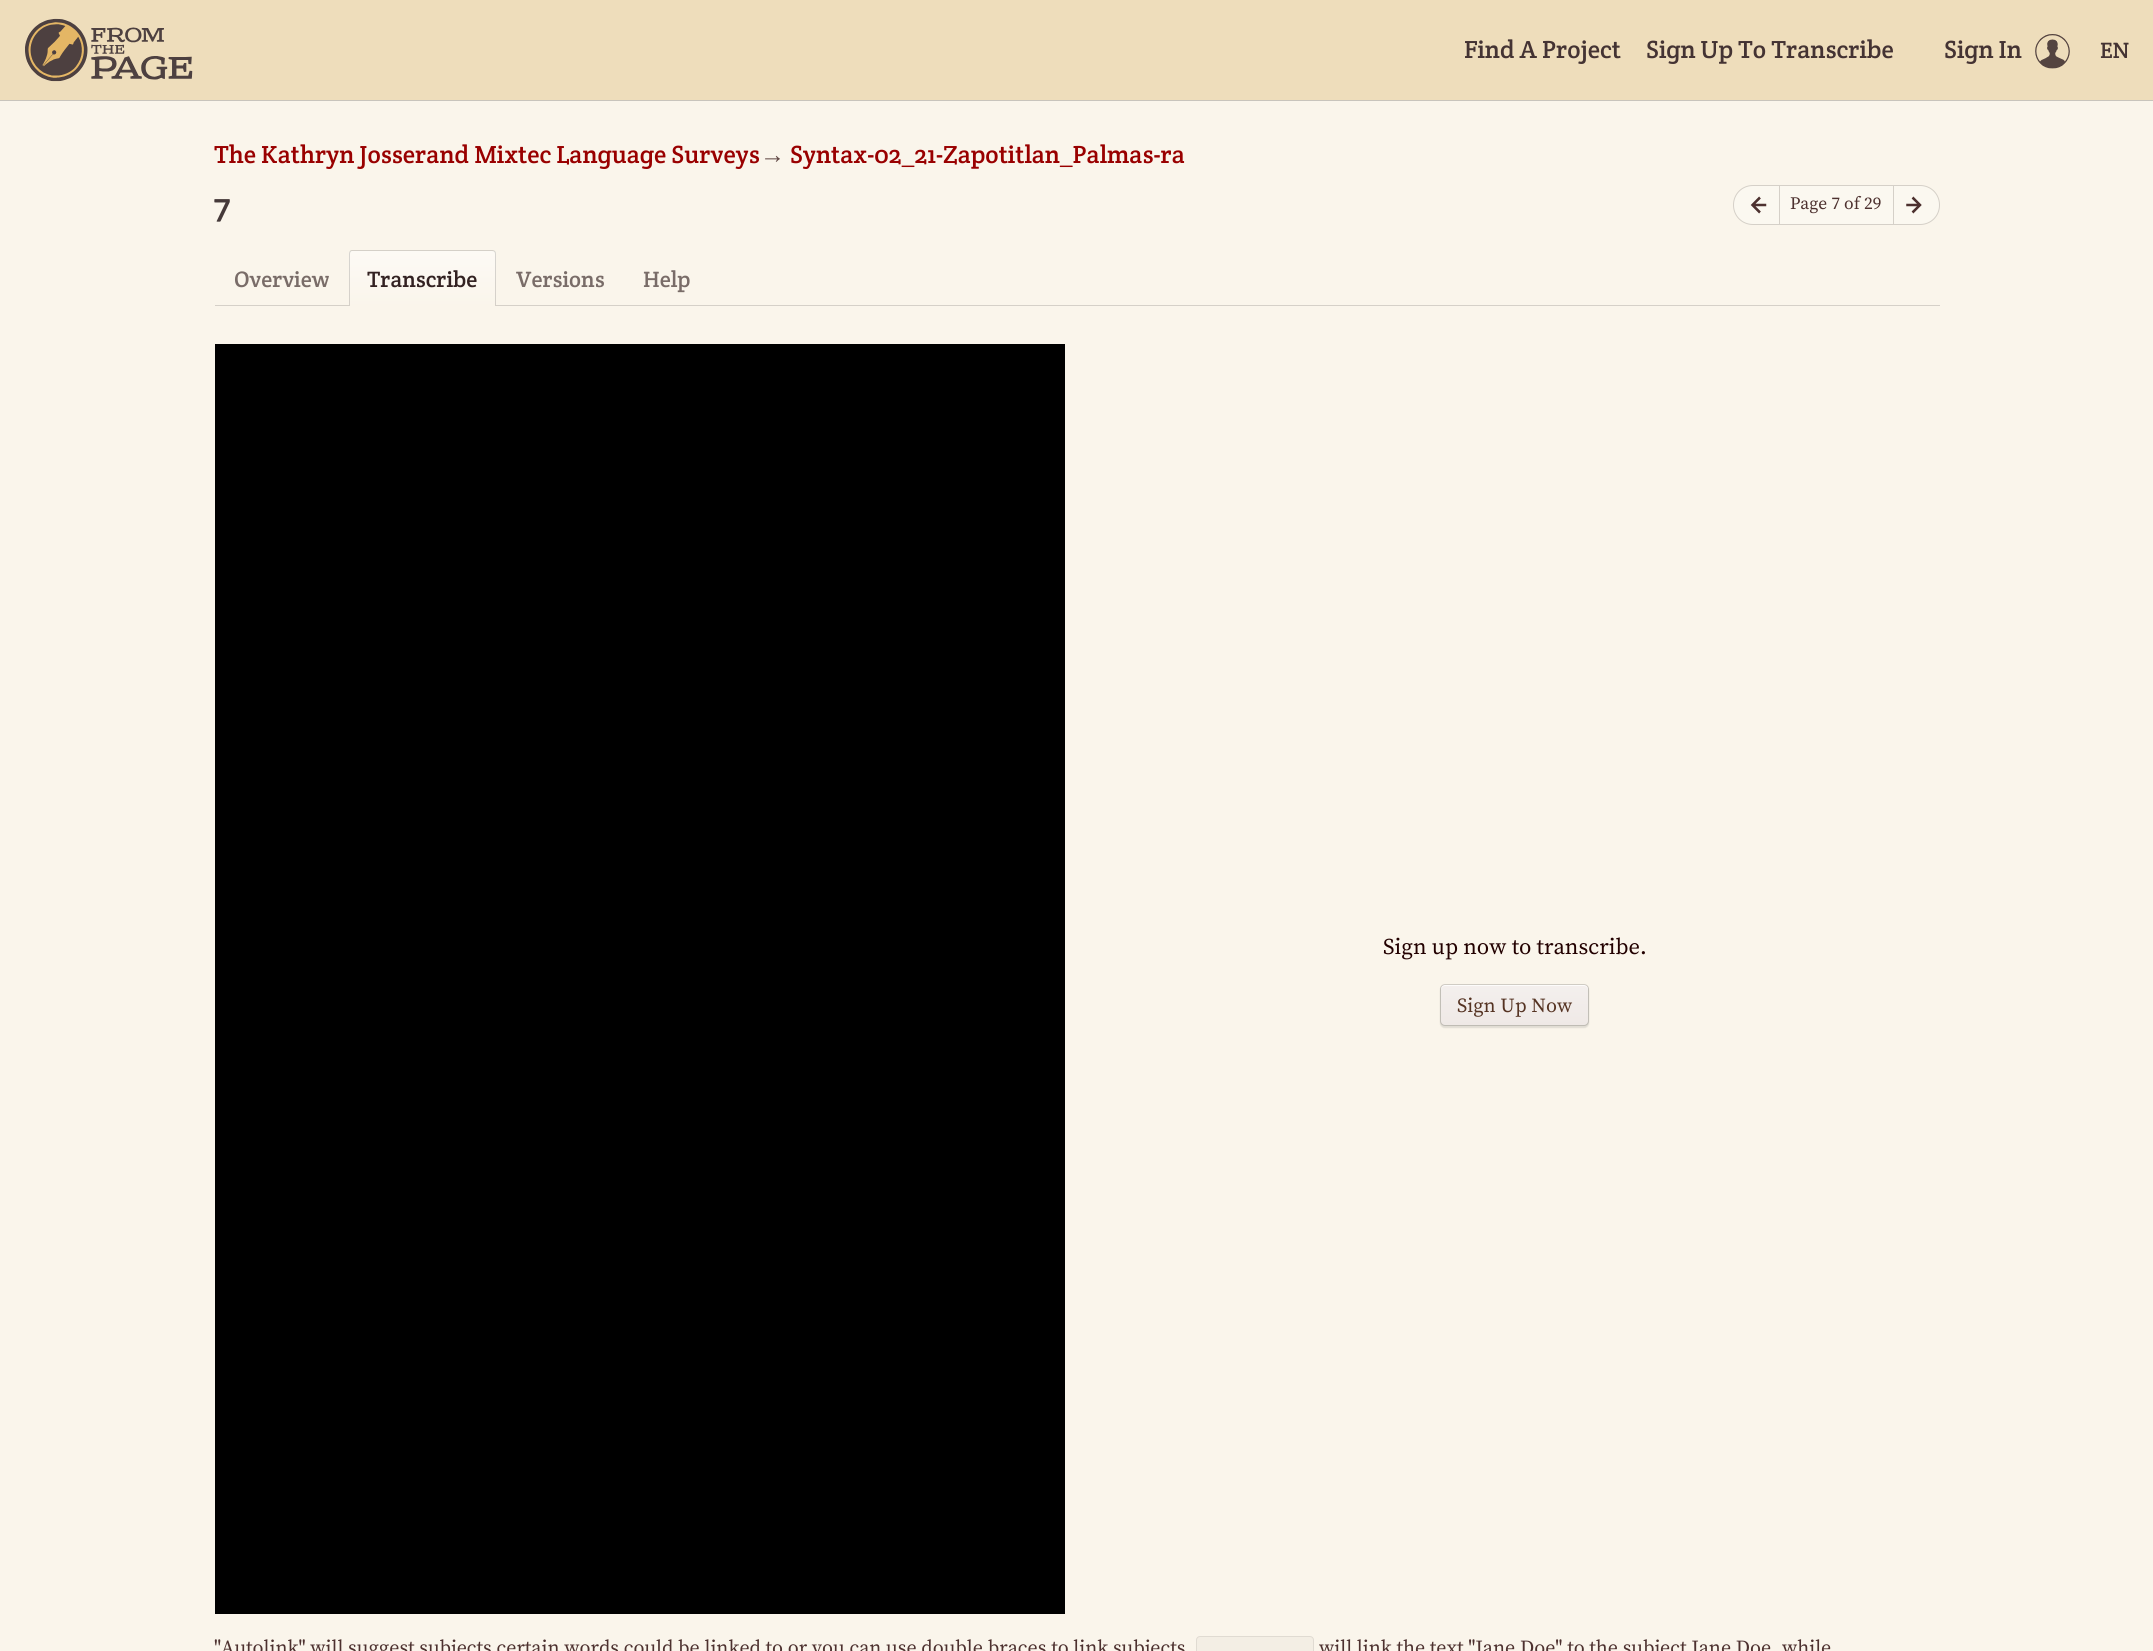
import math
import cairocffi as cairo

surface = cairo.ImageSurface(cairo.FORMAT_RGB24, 2153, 1651)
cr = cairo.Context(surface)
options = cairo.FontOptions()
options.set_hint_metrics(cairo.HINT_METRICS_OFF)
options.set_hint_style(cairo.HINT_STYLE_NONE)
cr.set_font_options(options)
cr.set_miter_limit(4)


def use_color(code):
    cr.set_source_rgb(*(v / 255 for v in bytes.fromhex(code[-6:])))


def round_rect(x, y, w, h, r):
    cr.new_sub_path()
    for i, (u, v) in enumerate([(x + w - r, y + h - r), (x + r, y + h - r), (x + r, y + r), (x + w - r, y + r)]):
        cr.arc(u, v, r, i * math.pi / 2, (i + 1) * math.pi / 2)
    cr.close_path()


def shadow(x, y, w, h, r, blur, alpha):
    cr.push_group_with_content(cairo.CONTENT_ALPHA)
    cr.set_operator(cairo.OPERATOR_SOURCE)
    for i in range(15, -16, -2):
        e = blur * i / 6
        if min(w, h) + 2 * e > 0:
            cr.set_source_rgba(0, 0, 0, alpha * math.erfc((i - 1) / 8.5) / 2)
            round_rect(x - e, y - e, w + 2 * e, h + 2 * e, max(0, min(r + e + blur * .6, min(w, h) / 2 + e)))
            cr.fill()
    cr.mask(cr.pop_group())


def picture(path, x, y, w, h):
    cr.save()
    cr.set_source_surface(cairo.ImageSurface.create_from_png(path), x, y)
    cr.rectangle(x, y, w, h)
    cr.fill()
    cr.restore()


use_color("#faf5eb")
cr.paint()
use_color("#c8c4bc")
cr.new_path()
cr.move_to(0, 100)
cr.line_to(0, 101)
cr.line_to(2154, 101)
cr.line_to(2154, 1)
cr.line_to(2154, 100)
cr.close_path()
cr.fill()
use_color("#eeddbb")
cr.rectangle(0, 0, 2153, 100)
cr.fill()
picture("img1.png", 25, 18, 168, 64)
cr.select_font_face("Crete Round")
cr.set_font_size(25)
use_color("#443333")
cr.move_to(1464, 58)
cr.show_text("Find A Project")
cr.move_to(1646, 58)
cr.show_text("Sign Up To Transcribe")
cr.move_to(1944, 58)
cr.show_text("Sign In")
picture("img2.png", 2035, 34, 35, 35)
cr.set_font_size(22.5)
cr.move_to(2100, 58)
cr.show_text("EN")
cr.set_font_size(25)
use_color("#990000")
cr.move_to(214, 163)
cr.show_text("The Kathryn Josserand Mixtec Language Surveys")
cr.select_font_face("Liberation Serif")
use_color("#634a47")
cr.move_to(760, 163)
cr.show_text("→")
cr.select_font_face("Crete Round")
use_color("#990000")
cr.move_to(790, 163)
cr.show_text("Syntax-02_21-Zapotitlan_Palmas-ra")
cr.set_font_size(35)
use_color("#453939")
cr.move_to(214, 217)
cr.show_text("7")
use_color("#fbf8f0")
cr.new_path()
cr.move_to(1753, 185.5)
cr.line_to(1779.5, 185.5)
cr.line_to(1779.5, 224.5)
cr.line_to(1753, 224.5)
cr.curve_to(1742, 224.5, 1733.5, 216, 1733.5, 205)
cr.curve_to(1733.5, 194, 1742, 185.5, 1753, 185.5)
cr.close_path()
cr.fill_preserve()
use_color("#d5d0c8")
cr.set_line_width(1)
cr.stroke()
picture("img3.png", 1750, 196, 17, 18)
use_color("#fbf8f0")
cr.rectangle(1780, 186, 113, 38)
cr.fill()
use_color("#d5d0c8")
cr.rectangle(1780, 185, 113, 1)
cr.fill()
cr.rectangle(1780, 224, 113, 1)
cr.fill()
cr.select_font_face("Source Serif Pro")
cr.set_font_size(17.5)
use_color("#4d312f")
cr.move_to(1790, 209)
cr.show_text("Page 7 of 29")
use_color("#fbf8f0")
cr.new_path()
cr.move_to(1893.5, 185.5)
cr.line_to(1920, 185.5)
cr.curve_to(1931, 185.5, 1939.5, 194, 1939.5, 205)
cr.curve_to(1939.5, 216, 1931, 224.5, 1920, 224.5)
cr.line_to(1893.5, 224.5)
cr.close_path()
cr.fill_preserve()
use_color("#d5d0c8")
cr.stroke()
picture("img4.png", 1906, 196, 16, 18)
cr.rectangle(215, 305, 1725, 1)
cr.fill()
cr.select_font_face("Crete Round")
cr.set_font_size(22.5)
use_color("#796c68")
cr.move_to(234, 287)
cr.show_text("Overview")
cr.save()
cr.new_path()
cr.move_to(353, 250)
cr.line_to(492, 250)
cr.curve_to(494, 250, 496, 252, 496, 254)
cr.line_to(496, 306)
cr.line_to(349, 306)
cr.line_to(349, 254)
cr.curve_to(349, 252, 351, 250, 353, 250)
cr.close_path()
cr.clip()
gradient = cairo.LinearGradient(423, 251, 423, 306)
gradient.add_color_stop_rgba(0, 0.992, 0.98, 0.961, 1)
gradient.add_color_stop_rgba(1, 0.98, 0.961, 0.922, 1)
cr.set_source(gradient)
cr.rectangle(349, 251, 147, 55)
cr.fill()
cr.restore()
cr.set_source_rgba(0, 0, 0, 0.15)
cr.set_fill_rule(cairo.FILL_RULE_EVEN_ODD)
cr.new_path()
cr.move_to(352, 250)
cr.line_to(492, 250)
cr.curve_to(495, 250, 496, 252, 496, 254)
cr.line_to(496, 306)
cr.line_to(349, 306)
cr.line_to(349, 254)
cr.curve_to(349, 252, 350, 250, 352, 250)
cr.close_path()
cr.move_to(352, 251)
cr.line_to(492, 251)
cr.curve_to(494, 251, 495, 252, 495, 254)
cr.line_to(495, 306)
cr.line_to(350, 306)
cr.line_to(350, 254)
cr.curve_to(350, 252, 351, 251, 352, 251)
cr.close_path()
cr.fill()
use_color("#332222")
cr.move_to(367, 287)
cr.show_text("Transcribe")
use_color("#796c68")
cr.move_to(516, 287)
cr.show_text("Versions")
cr.move_to(643, 287)
cr.show_text("Help")
use_color("#000000")
cr.rectangle(215, 344, 850, 1270)
cr.fill()
cr.select_font_face("Source Serif Pro")
use_color("#220000")
cr.move_to(1383, 954)
cr.show_text("Sign up now to transcribe.")
use_color("#000000")
shadow(1440, 985, 149, 43, 5, 0.5, 0.1)
use_color("#efe9e6")
round_rect(1441, 985, 147, 40, 4)
cr.fill()
gradient = cairo.LinearGradient(1514, 985, 1514, 1025)
gradient.add_color_stop_rgba(0, 1, 1, 1, 0.3)
gradient.add_color_stop_rgba(1, 1, 1, 1, 0)
cr.set_source(gradient)
round_rect(1441, 985, 147, 40, 4)
cr.fill()
use_color("#fdfcfb")
cr.set_fill_rule(cairo.FILL_RULE_WINDING)
cr.new_path()
cr.move_to(1445, 986)
cr.line_to(1584, 986)
cr.curve_to(1586, 986, 1588, 988, 1588, 990)
cr.line_to(1588, 989)
cr.curve_to(1588, 987, 1586, 985, 1584, 985)
cr.line_to(1445, 985)
cr.curve_to(1443, 985, 1441, 987, 1441, 989)
cr.line_to(1441, 990)
cr.curve_to(1441, 988, 1443, 986, 1445, 986)
cr.close_path()
cr.fill()
round_rect(1440.5, 984.5, 148, 41, 4.5)
cr.set_source_rgba(0, 0, 0, 0.15)
cr.stroke()
cr.set_font_size(20)
use_color("#553322")
cr.move_to(1457, 1012)
cr.show_text("Sign Up Now")
use_color("#4d312f")
cr.move_to(214, 1654)
cr.show_text("\"Autolink\" will suggest subjects certain words could be linked to or you can use double braces to link subjects")
use_color("#f3eee4")
round_rect(1196.5, 1636.5, 117, 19, 3.5)
cr.fill_preserve()
use_color("#e0dbd2")
cr.stroke()
use_color("#4d312f")
cr.move_to(1319, 1654)
cr.show_text("will link the text \"Jane Doe\" to the subject Jane Doe, while")
surface.write_to_png("result.png")
